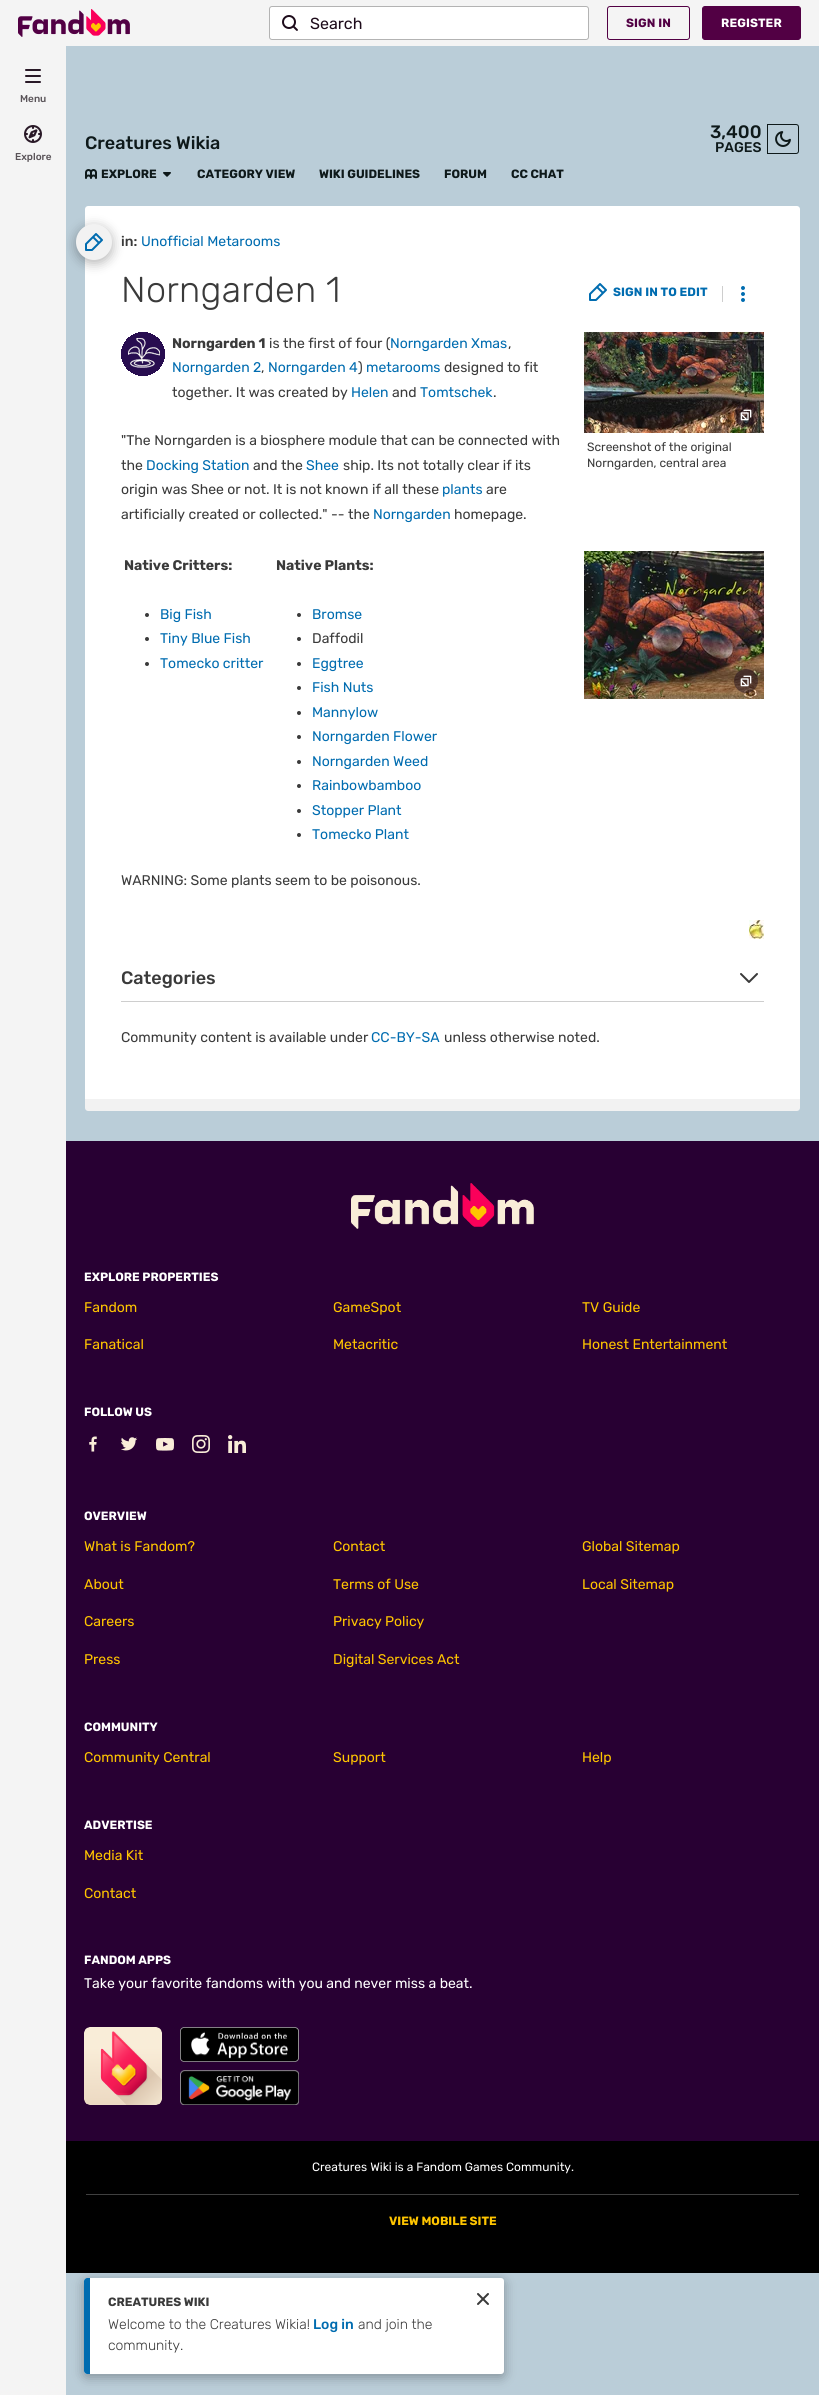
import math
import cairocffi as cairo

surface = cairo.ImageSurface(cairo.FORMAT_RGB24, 819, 2395)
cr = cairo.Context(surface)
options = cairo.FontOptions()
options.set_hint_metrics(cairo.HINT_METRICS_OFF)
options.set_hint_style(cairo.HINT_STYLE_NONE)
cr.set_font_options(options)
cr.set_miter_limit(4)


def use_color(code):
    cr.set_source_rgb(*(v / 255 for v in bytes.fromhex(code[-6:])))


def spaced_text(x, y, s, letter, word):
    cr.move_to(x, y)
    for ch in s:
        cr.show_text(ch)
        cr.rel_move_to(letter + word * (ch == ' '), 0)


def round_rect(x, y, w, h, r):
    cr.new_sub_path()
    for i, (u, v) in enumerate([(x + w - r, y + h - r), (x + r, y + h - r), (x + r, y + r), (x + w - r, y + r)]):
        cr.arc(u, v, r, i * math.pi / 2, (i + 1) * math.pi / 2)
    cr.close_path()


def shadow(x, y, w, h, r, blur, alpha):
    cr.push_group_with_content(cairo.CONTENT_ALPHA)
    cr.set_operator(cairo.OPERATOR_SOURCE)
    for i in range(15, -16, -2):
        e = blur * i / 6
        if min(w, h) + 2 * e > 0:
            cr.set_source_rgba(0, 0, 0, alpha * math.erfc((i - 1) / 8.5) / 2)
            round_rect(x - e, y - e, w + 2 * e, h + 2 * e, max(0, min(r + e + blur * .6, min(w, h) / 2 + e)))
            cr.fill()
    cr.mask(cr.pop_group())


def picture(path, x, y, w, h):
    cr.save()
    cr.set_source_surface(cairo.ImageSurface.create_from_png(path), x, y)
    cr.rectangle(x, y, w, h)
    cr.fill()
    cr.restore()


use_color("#bacdd8")
cr.paint()
use_color("#f4f4f4")
cr.rectangle(0, 0, 819, 46)
cr.fill()
picture("img1.png", 18, 9, 112, 28)
use_color("#ffffff")
round_rect(269.5, 6.5, 319, 33, 2.5)
cr.fill_preserve()
use_color("#b3b3b3")
cr.set_line_width(1)
cr.stroke()
picture("img2.png", 282, 15, 16, 16)
cr.select_font_face("Rubik")
cr.set_font_size(16)
use_color("#1e0c1b")
cr.move_to(310, 29)
cr.show_text("Search")
round_rect(607.5, 6.5, 82, 33, 2.5)
use_color("#520044")
cr.stroke()
cr.select_font_face("Rubik", cairo.FONT_SLANT_NORMAL, cairo.FONT_WEIGHT_BOLD)
cr.set_font_size(12)
spaced_text(626, 27, "SIGN IN", 0.1, 0)
round_rect(702.5, 6.5, 98, 33, 2.5)
cr.fill_preserve()
cr.stroke()
use_color("#ffffff")
spaced_text(721, 27, "REGISTER", 0.1, 0)
cr.new_path()
cr.move_to(88, 206)
cr.line_to(797, 206)
cr.curve_to(798.5, 206, 800, 207.5, 800, 209)
cr.line_to(800, 1099)
cr.line_to(85, 1099)
cr.line_to(85, 209)
cr.curve_to(85, 207.5, 86.5, 206, 88, 206)
cr.close_path()
cr.fill()
use_color("#000000")
shadow(76, 227, 36, 36, 18, 6, 0.3)
use_color("#000000")
cr.rectangle(66, 2141, 753, 132)
cr.fill()
use_color("#000000")
shadow(84, 2281, 420, 96, 3, 6, 0.3)
use_color("#f4f4f4")
cr.rectangle(0, 46, 66, 2349)
cr.fill()
picture("img3.png", 25, 69, 16, 14)
cr.select_font_face("Rubik Medium")
cr.set_font_size(10)
use_color("#595358")
cr.move_to(20, 102)
cr.show_text("Menu")
picture("img4.png", 24, 125, 18, 18)
cr.move_to(15, 160)
cr.show_text("Explore")
cr.set_font_size(18)
use_color("#0e191a")
cr.move_to(85, 149)
cr.show_text("Creatures Wikia")
cr.move_to(710, 138)
cr.show_text("3,400")
cr.set_font_size(14)
cr.move_to(715, 152)
cr.show_text("PAGES")
cr.new_path()
cr.move_to(767.5, 124.5)
cr.line_to(796, 124.5)
cr.curve_to(797.5, 124.5, 798.5, 125.5, 798.5, 127)
cr.line_to(798.5, 151)
cr.curve_to(798.5, 152.5, 797.5, 153.5, 796, 153.5)
cr.line_to(767.5, 153.5)
cr.close_path()
cr.stroke()
picture("img5.png", 775, 131, 16, 16)
picture("img6.png", 85, 169, 12, 10)
cr.select_font_face("Rubik", cairo.FONT_SLANT_NORMAL, cairo.FONT_WEIGHT_BOLD)
cr.set_font_size(12)
cr.move_to(101, 178)
cr.show_text("EXPLORE")
picture("img7.png", 163, 172, 8, 5)
cr.move_to(197, 178)
cr.show_text("CATEGORY VIEW")
cr.move_to(319, 178)
cr.show_text("WIKI GUIDELINES")
cr.move_to(444, 178)
cr.show_text("FORUM")
cr.move_to(511, 178)
cr.show_text("CC CHAT")
use_color("#f2f2f2")
cr.new_path()
cr.arc(94, 242, 18, 0, 2 * math.pi)
cr.fill()
picture("img8.png", 85, 233, 18, 18)
cr.select_font_face("Rubik Medium")
cr.set_font_size(14)
use_color("#3a3a3a")
cr.move_to(121, 246)
cr.show_text("in:")
cr.select_font_face("Rubik")
use_color("#006cb0")
cr.move_to(141, 246)
cr.show_text("Unofficial Metarooms")
cr.select_font_face("Rubik Light")
cr.set_font_size(36)
use_color("#3a3a3a")
spaced_text(121, 302, "Norngarden 1", 0.25, 0)
picture("img9.png", 589, 283, 18, 18)
cr.select_font_face("Rubik", cairo.FONT_SLANT_NORMAL, cairo.FONT_WEIGHT_BOLD)
cr.set_font_size(12)
use_color("#006cb0")
spaced_text(613, 296, "SIGN IN TO EDIT", 0.1, 0)
use_color("#cecece")
cr.rectangle(722, 286, 1, 16)
cr.fill()
picture("img10.png", 741, 286, 4, 16)
picture("img11.png", 121, 332, 44, 44)
cr.set_font_size(14)
use_color("#3a3a3a")
cr.move_to(172, 348)
cr.show_text("Norngarden 1")
cr.select_font_face("Rubik")
cr.move_to(269, 348)
cr.show_text("is the first of four (")
use_color("#006cb0")
cr.move_to(390, 348)
cr.show_text("Norngarden Xmas")
use_color("#3a3a3a")
cr.move_to(508, 348)
cr.show_text(",")
use_color("#006cb0")
cr.move_to(172, 372)
cr.show_text("Norngarden 2")
use_color("#3a3a3a")
cr.move_to(261, 372)
cr.show_text(",")
use_color("#006cb0")
cr.move_to(268, 372)
cr.show_text("Norngarden 4")
use_color("#3a3a3a")
cr.move_to(358, 372)
cr.show_text(")")
use_color("#006cb0")
cr.move_to(366, 372)
cr.show_text("metarooms")
use_color("#3a3a3a")
cr.move_to(444, 372)
cr.show_text("designed to fit")
cr.move_to(172, 397)
cr.show_text("together. It was created by")
use_color("#006cb0")
cr.move_to(351, 397)
cr.show_text("Helen")
use_color("#3a3a3a")
cr.move_to(392, 397)
cr.show_text("and")
use_color("#006cb0")
cr.move_to(420, 397)
cr.show_text("Tomtschek")
use_color("#3a3a3a")
cr.move_to(493, 397)
cr.show_text(".")
cr.move_to(121, 445)
cr.show_text("\"The Norngarden is a biosphere module that can be connected with")
cr.move_to(121, 470)
cr.show_text("the")
use_color("#006cb0")
cr.move_to(146, 470)
cr.show_text("Docking Station")
use_color("#3a3a3a")
cr.move_to(253, 470)
cr.show_text("and the")
use_color("#006cb0")
cr.move_to(306, 470)
cr.show_text("Shee")
use_color("#3a3a3a")
cr.move_to(343, 470)
cr.show_text("ship. Its not totally clear if its")
cr.move_to(121, 494)
cr.show_text("origin was Shee or not. It is not known if all these")
use_color("#006cb0")
cr.move_to(442, 494)
cr.show_text("plants")
use_color("#3a3a3a")
cr.move_to(486, 494)
cr.show_text("are")
cr.move_to(121, 519)
cr.show_text("artificially created or collected.\" -- the")
use_color("#006cb0")
cr.move_to(373, 519)
cr.show_text("Norngarden")
use_color("#3a3a3a")
cr.move_to(454, 519)
cr.show_text("homepage.")
picture("img12.png", 584, 332, 180, 101)
cr.set_source_rgba(0.118, 0.047, 0.106, 0.5)
cr.arc(746, 415, 12, 0, 2 * math.pi)
cr.fill()
picture("img13.png", 740, 409, 12, 12)
cr.set_font_size(12)
use_color("#3a3a3a")
cr.move_to(587, 451)
cr.show_text("Screenshot of the original")
cr.move_to(587, 467)
cr.show_text("Norngarden, central area")
cr.select_font_face("Rubik", cairo.FONT_SLANT_NORMAL, cairo.FONT_WEIGHT_BOLD)
cr.set_font_size(14)
cr.move_to(124, 570)
cr.show_text("Native Critters:")
cr.new_path()
cr.arc(147, 615, 2, 0, 2 * math.pi)
cr.fill()
cr.select_font_face("Rubik")
use_color("#006cb0")
cr.move_to(160, 619)
cr.show_text("Big Fish")
use_color("#3a3a3a")
cr.new_path()
cr.arc(147, 639, 2, 0, 2 * math.pi)
cr.fill()
use_color("#006cb0")
cr.move_to(160, 643)
cr.show_text("Tiny Blue Fish")
use_color("#3a3a3a")
cr.new_path()
cr.arc(147, 664, 2, 0, 2 * math.pi)
cr.fill()
use_color("#006cb0")
cr.move_to(160, 668)
cr.show_text("Tomecko critter")
cr.select_font_face("Rubik", cairo.FONT_SLANT_NORMAL, cairo.FONT_WEIGHT_BOLD)
use_color("#3a3a3a")
cr.move_to(276, 570)
cr.show_text("Native Plants:")
cr.new_path()
cr.arc(299, 615, 2, 0, 2 * math.pi)
cr.fill()
cr.select_font_face("Rubik")
use_color("#006cb0")
cr.move_to(312, 619)
cr.show_text("Bromse")
use_color("#3a3a3a")
cr.new_path()
cr.arc(299, 639, 2, 0, 2 * math.pi)
cr.fill()
cr.move_to(312, 643)
cr.show_text("Daffodil")
cr.new_path()
cr.arc(299, 664, 2, 0, 2 * math.pi)
cr.fill()
use_color("#006cb0")
cr.move_to(312, 668)
cr.show_text("Eggtree")
use_color("#3a3a3a")
cr.new_path()
cr.arc(299, 688, 2, 0, 2 * math.pi)
cr.fill()
use_color("#006cb0")
cr.move_to(312, 692)
cr.show_text("Fish Nuts")
use_color("#3a3a3a")
cr.new_path()
cr.arc(299, 713, 2, 0, 2 * math.pi)
cr.fill()
use_color("#006cb0")
cr.move_to(312, 717)
cr.show_text("Mannylow")
use_color("#3a3a3a")
cr.new_path()
cr.arc(299, 737, 2, 0, 2 * math.pi)
cr.fill()
use_color("#006cb0")
cr.move_to(312, 741)
cr.show_text("Norngarden Flower")
use_color("#3a3a3a")
cr.new_path()
cr.arc(299, 762, 2, 0, 2 * math.pi)
cr.fill()
use_color("#006cb0")
cr.move_to(312, 766)
cr.show_text("Norngarden Weed")
use_color("#3a3a3a")
cr.new_path()
cr.arc(299, 786, 2, 0, 2 * math.pi)
cr.fill()
use_color("#006cb0")
cr.move_to(312, 790)
cr.show_text("Rainbowbamboo")
use_color("#3a3a3a")
cr.new_path()
cr.arc(299, 811, 2, 0, 2 * math.pi)
cr.fill()
use_color("#006cb0")
cr.move_to(312, 815)
cr.show_text("Stopper Plant")
use_color("#3a3a3a")
cr.new_path()
cr.arc(299, 835, 2, 0, 2 * math.pi)
cr.fill()
use_color("#006cb0")
cr.move_to(312, 839)
cr.show_text("Tomecko Plant")
picture("img14.png", 584, 551, 180, 148)
cr.set_source_rgba(0.118, 0.047, 0.106, 0.5)
cr.arc(746, 681, 12, 0, 2 * math.pi)
cr.fill()
picture("img15.png", 740, 675, 12, 12)
use_color("#3a3a3a")
cr.move_to(121, 885)
cr.show_text("WARNING: Some plants seem to be poisonous.")
picture("img16.png", 749, 920, 15, 19)
use_color("#cecece")
cr.rectangle(121, 1001, 643, 1)
cr.fill()
cr.select_font_face("Rubik Medium")
cr.set_font_size(18)
use_color("#3a3a3a")
cr.move_to(121, 984)
cr.show_text("Categories")
picture("img17.png", 740, 973, 18, 10)
cr.select_font_face("Rubik")
cr.set_font_size(14)
cr.move_to(121, 1042)
cr.show_text("Community content is available under")
use_color("#006cb0")
cr.move_to(371, 1042)
cr.show_text("CC-BY-SA")
use_color("#3a3a3a")
cr.move_to(444, 1042)
cr.show_text("unless otherwise noted.")
use_color("#f2f2f2")
cr.new_path()
cr.move_to(85, 1099)
cr.line_to(800, 1099)
cr.line_to(800, 1108)
cr.curve_to(800, 1109.5, 798.5, 1111, 797, 1111)
cr.line_to(88, 1111)
cr.curve_to(86.5, 1111, 85, 1109.5, 85, 1108)
cr.close_path()
cr.fill()
use_color("#280033")
cr.rectangle(66, 1141, 753, 1000)
cr.fill()
picture("img18.png", 351, 1183, 183, 46)
cr.select_font_face("Rubik", cairo.FONT_SLANT_NORMAL, cairo.FONT_WEIGHT_BOLD)
cr.set_font_size(12)
use_color("#ffffff")
cr.move_to(84, 1281)
cr.show_text("EXPLORE PROPERTIES")
cr.select_font_face("Rubik")
cr.set_font_size(14)
use_color("#ffc500")
cr.move_to(84, 1312)
cr.show_text("Fandom")
cr.move_to(333, 1312)
cr.show_text("GameSpot")
cr.move_to(582, 1312)
cr.show_text("TV Guide")
cr.move_to(84, 1349)
cr.show_text("Fanatical")
cr.move_to(333, 1349)
cr.show_text("Metacritic")
cr.move_to(582, 1349)
cr.show_text("Honest Entertainment")
cr.select_font_face("Rubik", cairo.FONT_SLANT_NORMAL, cairo.FONT_WEIGHT_BOLD)
cr.set_font_size(12)
use_color("#ffffff")
cr.move_to(84, 1416)
cr.show_text("FOLLOW US")
picture("img19.png", 89, 1436, 8, 16)
picture("img20.png", 121, 1437, 17, 14)
picture("img21.png", 156, 1438, 18, 13)
picture("img22.png", 192, 1435, 18, 18)
picture("img23.png", 228, 1435, 18, 18)
cr.move_to(84, 1520)
cr.show_text("OVERVIEW")
cr.select_font_face("Rubik")
cr.set_font_size(14)
use_color("#ffc500")
cr.move_to(84, 1551)
cr.show_text("What is Fandom?")
cr.move_to(333, 1551)
cr.show_text("Contact")
cr.move_to(582, 1551)
cr.show_text("Global Sitemap")
cr.move_to(84, 1589)
cr.show_text("About")
cr.move_to(333, 1589)
cr.show_text("Terms of Use")
cr.move_to(582, 1589)
cr.show_text("Local Sitemap")
cr.move_to(84, 1626)
cr.show_text("Careers")
cr.move_to(333, 1626)
cr.show_text("Privacy Policy")
cr.move_to(84, 1664)
cr.show_text("Press")
cr.move_to(333, 1664)
cr.show_text("Digital Services Act")
cr.select_font_face("Rubik", cairo.FONT_SLANT_NORMAL, cairo.FONT_WEIGHT_BOLD)
cr.set_font_size(12)
use_color("#ffffff")
cr.move_to(84, 1731)
cr.show_text("COMMUNITY")
cr.select_font_face("Rubik")
cr.set_font_size(14)
use_color("#ffc500")
cr.move_to(84, 1762)
cr.show_text("Community Central")
cr.move_to(333, 1762)
cr.show_text("Support")
cr.move_to(582, 1762)
cr.show_text("Help")
cr.select_font_face("Rubik", cairo.FONT_SLANT_NORMAL, cairo.FONT_WEIGHT_BOLD)
cr.set_font_size(12)
use_color("#ffffff")
cr.move_to(84, 1829)
cr.show_text("ADVERTISE")
cr.select_font_face("Rubik")
cr.set_font_size(14)
use_color("#ffc500")
cr.move_to(84, 1860)
cr.show_text("Media Kit")
cr.move_to(84, 1898)
cr.show_text("Contact")
cr.select_font_face("Rubik", cairo.FONT_SLANT_NORMAL, cairo.FONT_WEIGHT_BOLD)
cr.set_font_size(12)
use_color("#ffffff")
cr.move_to(84, 1964)
cr.show_text("FANDOM APPS")
cr.select_font_face("Rubik")
cr.set_font_size(14)
cr.move_to(84, 1988)
cr.show_text("Take your favorite fandoms with you and never miss a beat.")
picture("img24.png", 84, 2027, 78, 78)
picture("img25.png", 180, 2027, 119, 35)
picture("img26.png", 180, 2070, 119, 35)
cr.set_font_size(12)
cr.move_to(312, 2171)
cr.show_text("Creatures Wiki is a Fandom Games Community.")
use_color("#404040")
cr.rectangle(86, 2194, 713, 1)
cr.fill()
cr.select_font_face("Rubik", cairo.FONT_SLANT_NORMAL, cairo.FONT_WEIGHT_BOLD)
use_color("#ffc500")
cr.move_to(389, 2225)
cr.show_text("VIEW MOBILE SITE")
use_color("#ffffff")
round_rect(84, 2278, 420, 96, 3)
cr.fill()
use_color("#006cb0")
cr.new_path()
cr.move_to(87, 2278)
cr.line_to(90, 2278)
cr.line_to(90, 2374)
cr.line_to(87, 2374)
cr.curve_to(85.5, 2374, 84, 2372.5, 84, 2371)
cr.line_to(84, 2281)
cr.curve_to(84, 2279.5, 85.5, 2278, 87, 2278)
cr.close_path()
cr.fill()
use_color("#3a3a3a")
cr.move_to(108, 2306)
cr.show_text("CREATURES WIKI")
picture("img27.png", 477, 2293, 12, 12)
cr.select_font_face("Rubik Light")
cr.set_font_size(14)
cr.move_to(108, 2329)
cr.show_text("Welcome to the Creatures Wikia!")
cr.select_font_face("Rubik Medium")
use_color("#006cb0")
cr.move_to(313, 2329)
cr.show_text("Log in")
cr.select_font_face("Rubik Light")
use_color("#3a3a3a")
cr.move_to(358, 2329)
cr.show_text("and join the")
cr.move_to(108, 2350)
cr.show_text("community.")
surface.write_to_png("result.png")
